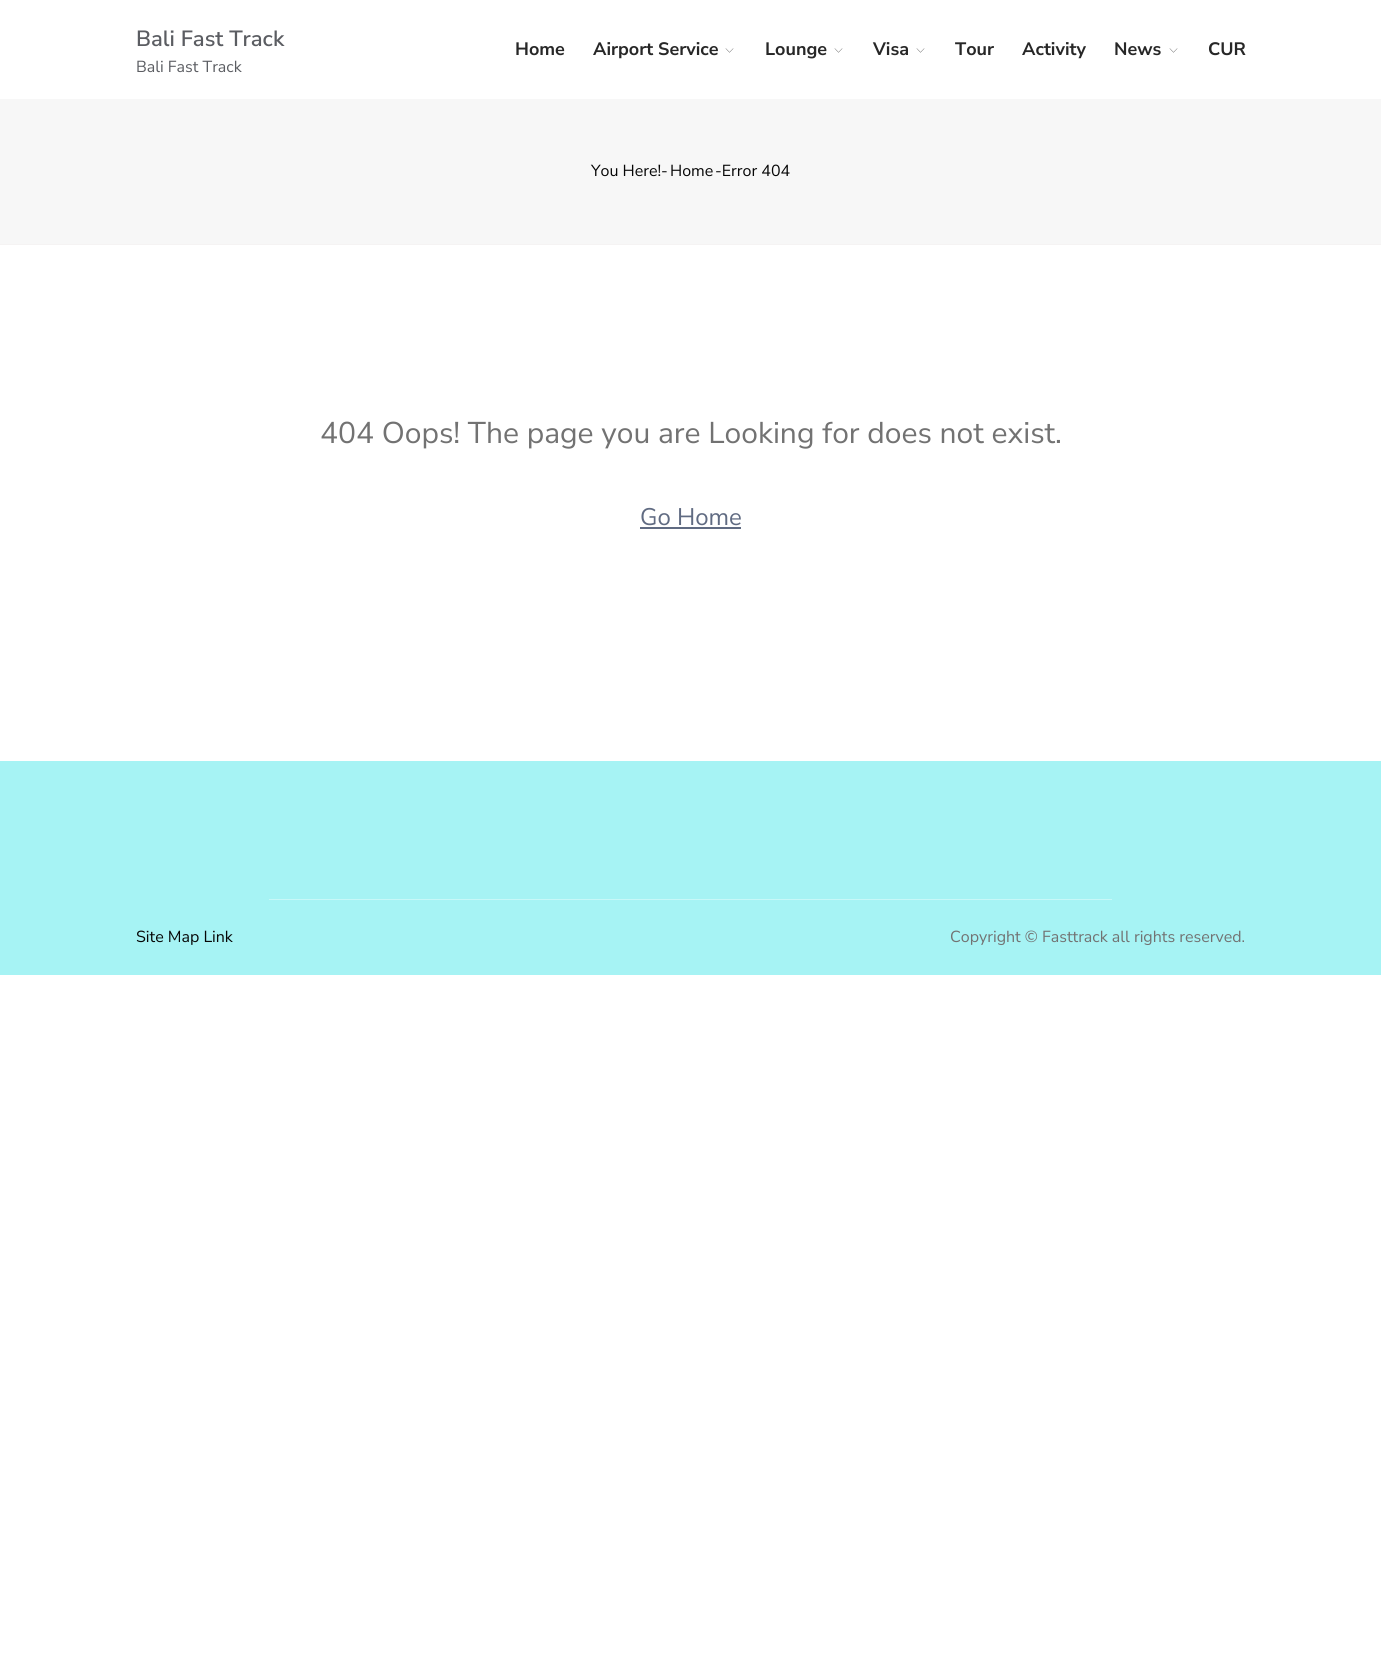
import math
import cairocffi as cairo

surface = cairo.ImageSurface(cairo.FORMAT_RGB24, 1381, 1654)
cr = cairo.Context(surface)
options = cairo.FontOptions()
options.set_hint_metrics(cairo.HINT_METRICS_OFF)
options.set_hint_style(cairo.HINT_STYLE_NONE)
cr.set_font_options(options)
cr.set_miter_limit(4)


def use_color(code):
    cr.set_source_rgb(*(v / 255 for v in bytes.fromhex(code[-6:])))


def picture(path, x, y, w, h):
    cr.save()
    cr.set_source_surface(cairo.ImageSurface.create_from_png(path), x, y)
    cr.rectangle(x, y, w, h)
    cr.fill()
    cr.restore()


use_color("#ffffff")
cr.paint()
cr.select_font_face("Nunito Sans SemiBold")
cr.set_font_size(22)
use_color("#5b5d62")
cr.move_to(136, 46)
cr.show_text("Bali Fast Track")
cr.select_font_face("Nunito Sans")
cr.set_font_size(16)
cr.move_to(136, 72)
cr.show_text("Bali Fast Track")
cr.select_font_face("Nunito Sans", cairo.FONT_SLANT_NORMAL, cairo.FONT_WEIGHT_BOLD)
cr.set_font_size(18)
use_color("#272727")
cr.move_to(515, 55)
cr.show_text("Home")
cr.move_to(593, 55)
cr.show_text("Airport Service")
picture("img1.png", 725, 48, 9, 5)
cr.move_to(765, 55)
cr.show_text("Lounge")
picture("img1.png", 834, 48, 9, 5)
cr.move_to(873, 55)
cr.show_text("Visa")
picture("img1.png", 916, 48, 9, 5)
cr.move_to(955, 55)
cr.show_text("Tour")
cr.move_to(1022, 55)
cr.show_text("Activity")
cr.move_to(1114, 55)
cr.show_text("News")
picture("img1.png", 1169, 48, 9, 5)
cr.move_to(1208, 55)
cr.show_text("CUR")
use_color("#f7f7f7")
cr.rectangle(0, 99, 1381, 145)
cr.fill()
cr.select_font_face("Nunito Sans")
cr.set_font_size(16)
use_color("#060606")
cr.move_to(591, 176)
cr.show_text("You Here!-")
cr.move_to(670, 176)
cr.show_text("Home")
cr.move_to(715, 176)
cr.show_text("-Error 404")
use_color("#f5f3f3")
cr.rectangle(0, 244, 1381, 1)
cr.fill()
cr.set_font_size(30)
use_color("#727272")
cr.move_to(320, 443)
cr.show_text("404 Oops! The page you are Looking for does not exist.")
cr.set_font_size(24)
use_color("#606b82")
cr.move_to(640, 525)
cr.show_text("Go Home")
cr.rectangle(640, 527, 101, 2)
cr.fill()
use_color("#a6f3f4")
cr.rectangle(0, 761, 1381, 214)
cr.fill()
use_color("#c8f8f8")
cr.rectangle(269, 899, 843, 1)
cr.fill()
cr.set_font_size(16)
use_color("#060606")
cr.move_to(136, 942)
cr.show_text("Site Map Link")
use_color("#727272")
cr.move_to(950, 942)
cr.show_text("Copyright © Fasttrack all rights reserved.")
surface.write_to_png("result.png")
